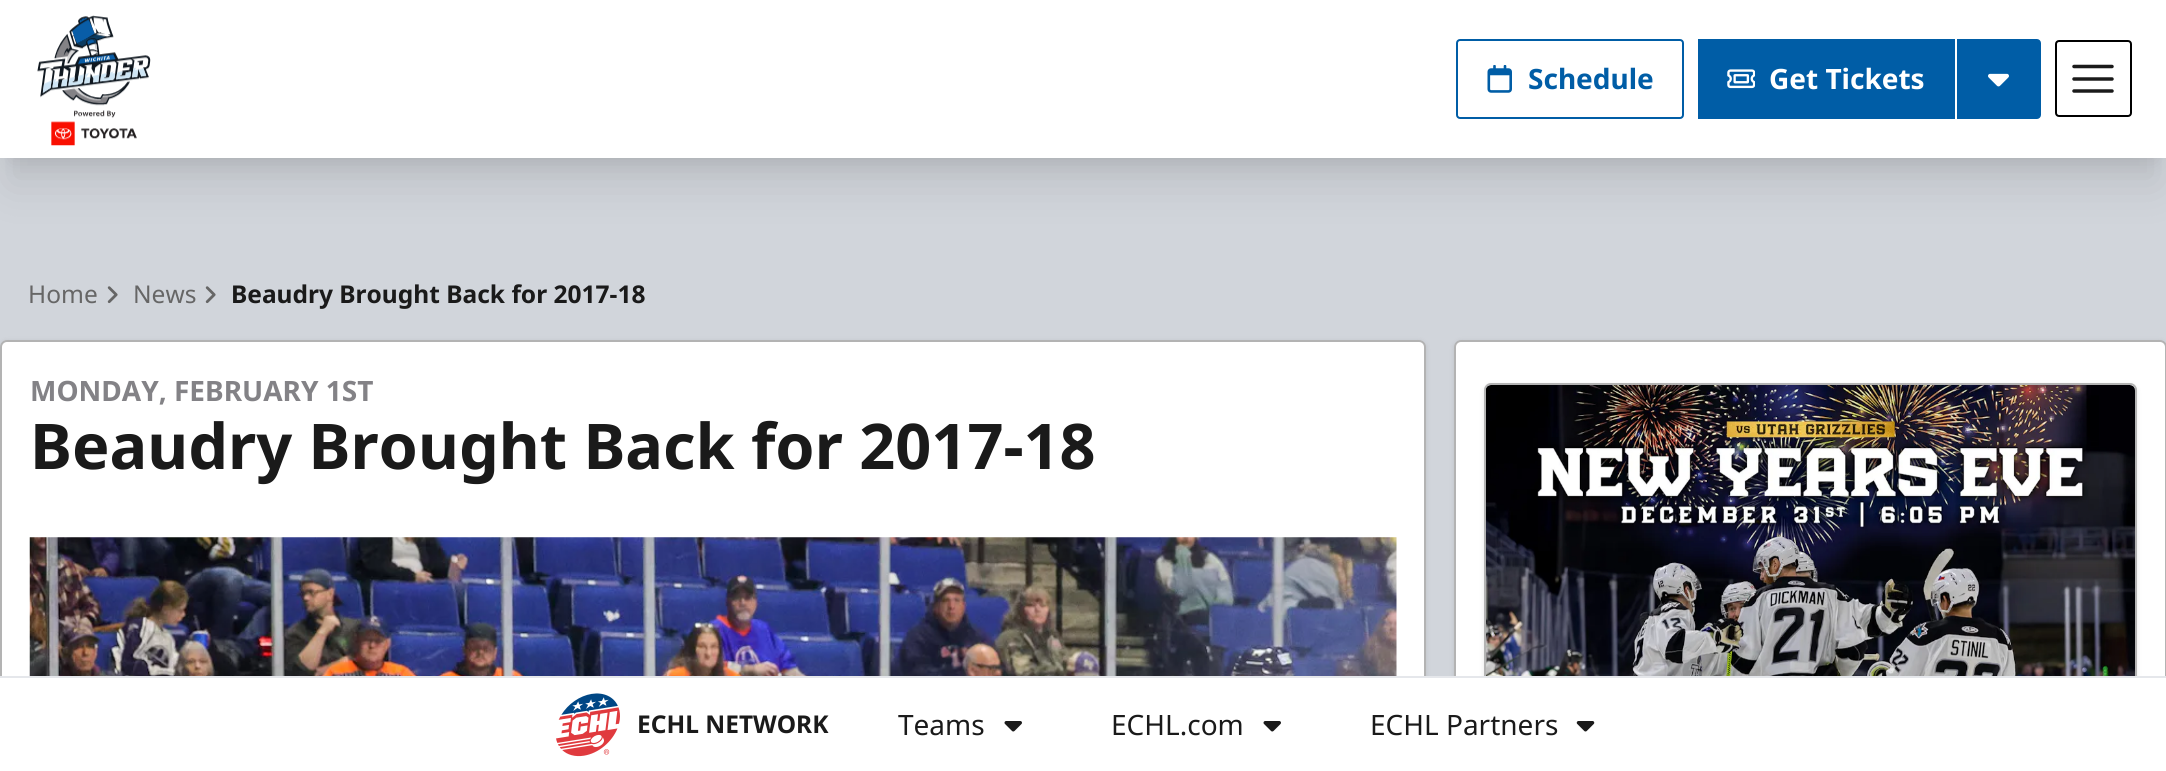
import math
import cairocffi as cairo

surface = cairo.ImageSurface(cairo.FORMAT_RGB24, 2166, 771)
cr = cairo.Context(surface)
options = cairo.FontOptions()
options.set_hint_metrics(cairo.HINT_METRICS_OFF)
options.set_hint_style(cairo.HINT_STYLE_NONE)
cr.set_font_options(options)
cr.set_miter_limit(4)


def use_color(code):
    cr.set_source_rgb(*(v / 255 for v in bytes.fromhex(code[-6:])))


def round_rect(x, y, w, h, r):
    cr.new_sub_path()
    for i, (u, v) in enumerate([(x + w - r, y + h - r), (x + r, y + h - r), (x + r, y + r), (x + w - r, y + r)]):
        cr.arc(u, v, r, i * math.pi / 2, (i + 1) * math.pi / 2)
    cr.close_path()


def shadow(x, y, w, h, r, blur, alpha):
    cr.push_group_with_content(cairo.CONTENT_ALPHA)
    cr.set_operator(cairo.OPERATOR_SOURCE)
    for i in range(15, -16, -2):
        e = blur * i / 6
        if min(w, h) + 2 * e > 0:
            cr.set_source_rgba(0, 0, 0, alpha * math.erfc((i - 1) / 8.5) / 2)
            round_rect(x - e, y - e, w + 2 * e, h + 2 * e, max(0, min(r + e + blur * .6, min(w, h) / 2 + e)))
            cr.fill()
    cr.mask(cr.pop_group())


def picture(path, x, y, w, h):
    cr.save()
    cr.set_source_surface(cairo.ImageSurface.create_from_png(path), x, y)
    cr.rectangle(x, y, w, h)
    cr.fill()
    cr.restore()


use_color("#d1d5db")
cr.paint()
use_color("#000000")
shadow(11, 25, 2145, 136, 0, 9, 0.1)
shadow(9, 44, 2149, 140, 0, 22, 0.1)
use_color("#ffffff")
cr.rectangle(0, 0, 2166, 158)
cr.fill()
picture("img1.png", 37, 15, 114, 131)
round_rect(1457, 40, 226, 78, 3)
use_color("#005da6")
cr.stroke()
picture("img2.png", 1487, 65, 25, 28)
cr.select_font_face("Noto Sans", cairo.FONT_SLANT_NORMAL, cairo.FONT_WEIGHT_BOLD)
cr.set_font_size(28)
cr.move_to(1528, 89)
cr.show_text("Schedule")
cr.rectangle(1698, 39, 257, 80)
cr.fill()
picture("img3.png", 1727, 69, 28, 20)
use_color("#ffffff")
cr.move_to(1769, 89)
cr.show_text("Get Tickets")
use_color("#005da6")
cr.new_path()
cr.move_to(1958, 40)
cr.line_to(2037, 40)
cr.curve_to(2038.5, 40, 2040, 41.5, 2040, 43)
cr.line_to(2040, 115)
cr.curve_to(2040, 116.5, 2038.5, 118, 2037, 118)
cr.line_to(1958, 118)
cr.close_path()
cr.fill_preserve()
cr.stroke()
picture("img4.png", 1988, 73, 21, 14)
round_rect(2056, 41, 75, 75, 3)
use_color("#000000")
cr.stroke()
cr.new_path()
cr.move_to(2074, 66.5)
cr.line_to(2112, 66.5)
cr.move_to(2074, 79)
cr.line_to(2112, 79)
cr.move_to(2074, 91)
cr.line_to(2112, 91)
use_color("#1a1a1a")
cr.set_line_width(3.5)
cr.set_line_cap(cairo.LINE_CAP_ROUND)
cr.set_line_join(cairo.LINE_JOIN_ROUND)
cr.stroke()
cr.select_font_face("Noto Sans")
cr.set_font_size(24.5)
use_color("#666666")
cr.move_to(28, 303)
cr.show_text("Home")
picture("img5.png", 107, 286, 11, 18)
cr.move_to(133, 303)
cr.show_text("News")
picture("img5.png", 205, 286, 11, 18)
cr.select_font_face("Noto Sans", cairo.FONT_SLANT_NORMAL, cairo.FONT_WEIGHT_BOLD)
use_color("#1a1a1a")
cr.move_to(231, 303)
cr.show_text("Beaudry Brought Back for 2017-18")
use_color("#000000")
shadow(0, 341, 1426, 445, 7, 2.5, 0.1)
use_color("#ffffff")
round_rect(0, 340, 1426, 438, 7)
cr.fill()
round_rect(1, 341, 1424, 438, 6)
cr.set_source_rgba(0, 0, 0, 0.3)
cr.set_line_width(2)
cr.set_line_cap(cairo.LINE_CAP_BUTT)
cr.set_line_join(cairo.LINE_JOIN_MITER)
cr.stroke()
cr.set_font_size(28)
use_color("#838286")
cr.move_to(30, 401)
cr.show_text("MONDAY, FEBRUARY 1ST")
cr.set_font_size(63)
use_color("#1a1a1a")
cr.move_to(30, 469)
cr.show_text("Beaudry Brought Back for 2017-18")
picture("img6.png", 29, 537, 1368, 139)
use_color("#000000")
shadow(1454, 341, 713, 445, 7, 2.5, 0.1)
use_color("#ffffff")
round_rect(1454, 340, 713, 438, 7)
cr.fill()
round_rect(1455, 341, 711, 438, 6)
cr.set_source_rgba(0, 0, 0, 0.3)
cr.stroke()
use_color("#000000")
shadow(1484, 385, 653, 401, 7, 2.5, 0.1)
use_color("#ffffff")
round_rect(1484, 383, 653, 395, 7)
cr.fill()
round_rect(1485, 384, 651, 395, 6)
cr.set_source_rgba(0, 0, 0, 0.3)
cr.stroke()
use_color("#f3f4f6")
cr.new_path()
cr.move_to(1491, 385)
cr.line_to(2130, 385)
cr.curve_to(2133, 385, 2135, 387, 2135, 390)
cr.line_to(2135, 711)
cr.line_to(1486, 711)
cr.line_to(1486, 390)
cr.curve_to(1486, 387, 1488, 385, 1491, 385)
cr.close_path()
cr.fill()
picture("img7.png", 1486, 385, 649, 291)
use_color("#ffffff")
cr.rectangle(0, 678, 2166, 93)
cr.fill()
use_color("#e5e7eb")
cr.rectangle(0, 676, 2166, 2)
cr.fill()
picture("img8.png", 556, 693, 64, 64)
cr.set_font_size(24.5)
use_color("#1a1a1a")
cr.move_to(637, 733)
cr.show_text("ECHL NETWORK")
cr.select_font_face("Noto Sans")
cr.set_font_size(28)
cr.move_to(898, 735)
cr.show_text("Teams")
picture("img9.png", 1004, 721, 18, 11)
cr.move_to(1111, 735)
cr.show_text("ECHL.com")
picture("img9.png", 1263, 721, 18, 11)
cr.move_to(1370, 735)
cr.show_text("ECHL Partners")
picture("img10.png", 1576, 721, 19, 11)
surface.write_to_png("result.png")
